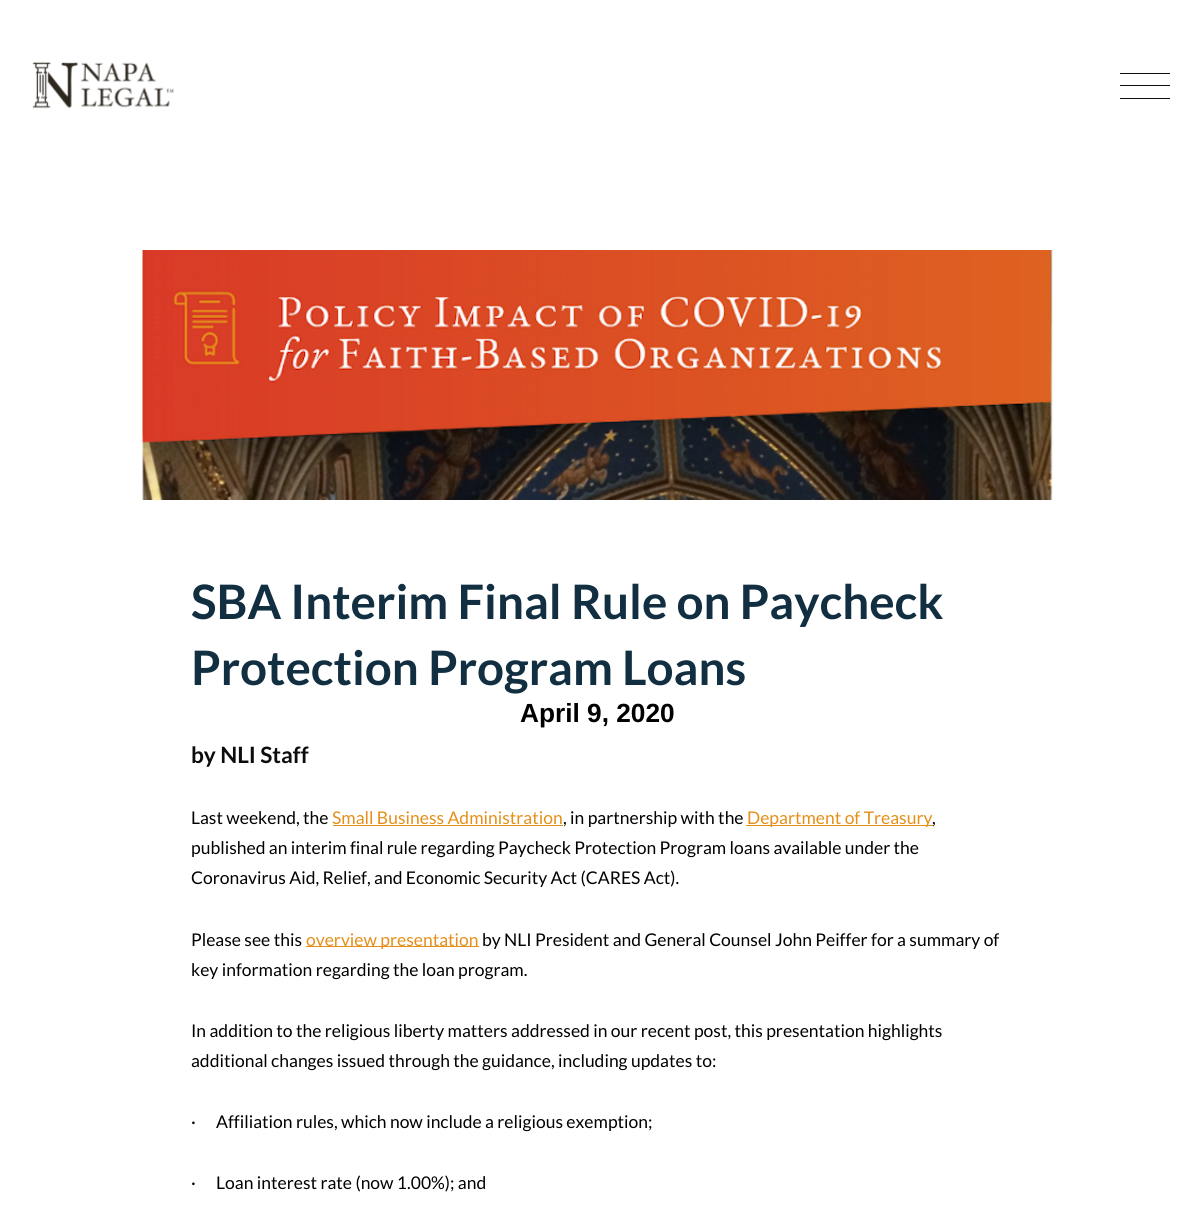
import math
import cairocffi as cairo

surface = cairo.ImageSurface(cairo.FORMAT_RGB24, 1194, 1216)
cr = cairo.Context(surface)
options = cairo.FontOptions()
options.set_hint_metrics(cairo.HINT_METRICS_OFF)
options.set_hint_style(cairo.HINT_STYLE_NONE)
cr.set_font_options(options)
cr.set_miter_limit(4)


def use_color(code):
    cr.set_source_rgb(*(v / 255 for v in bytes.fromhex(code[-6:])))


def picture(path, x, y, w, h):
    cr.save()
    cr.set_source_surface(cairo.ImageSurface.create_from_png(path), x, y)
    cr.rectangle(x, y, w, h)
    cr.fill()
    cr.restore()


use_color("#ffffff")
cr.paint()
picture("img1.png", 32, 61, 142, 48)
use_color("#0d0c0c")
cr.rectangle(1120, 73, 50, 1)
cr.fill()
cr.rectangle(1120, 85, 50, 1)
cr.fill()
cr.rectangle(1120, 98, 50, 1)
cr.fill()
picture("img2.png", 142, 250, 911, 250)
cr.select_font_face("Lato", cairo.FONT_SLANT_NORMAL, cairo.FONT_WEIGHT_BOLD)
cr.set_font_size(47.5)
use_color("#112f41")
cr.move_to(191, 619)
cr.show_text("SBA Interim Final Rule on Paycheck")
cr.move_to(191, 685)
cr.show_text("Protection Program Loans")
cr.select_font_face("Liberation Sans", cairo.FONT_SLANT_NORMAL, cairo.FONT_WEIGHT_BOLD)
cr.set_font_size(26.25)
use_color("#000000")
cr.move_to(520, 722)
cr.show_text("April 9, 2020")
cr.select_font_face("Lato", cairo.FONT_SLANT_NORMAL, cairo.FONT_WEIGHT_BOLD)
cr.set_font_size(22.5)
use_color("#0d0c0c")
cr.move_to(191, 763)
cr.show_text("by NLI Staff")
cr.select_font_face("Lato")
cr.set_font_size(17.5)
use_color("#000000")
cr.move_to(191, 824)
cr.show_text("Last weekend, the")
use_color("#e58f19")
cr.move_to(332, 824)
cr.show_text("Small Business Administration")
cr.rectangle(333, 825, 230, 1)
cr.fill()
use_color("#000000")
cr.move_to(563, 824)
cr.show_text(", in partnership with the")
use_color("#e58f19")
cr.rectangle(746, 825, 187, 1)
cr.fill()
cr.move_to(747, 824)
cr.show_text("Department of Treasury")
use_color("#000000")
cr.move_to(932, 824)
cr.show_text(",")
cr.move_to(191, 854)
cr.show_text("published an interim final rule regarding Paycheck Protection Program loans available under the")
cr.move_to(191, 884)
cr.show_text("Coronavirus Aid, Relief, and Economic Security Act (CARES Act).")
cr.move_to(191, 946)
cr.show_text("Please see this")
use_color("#e58f19")
cr.rectangle(306, 946, 173, 1)
cr.fill()
cr.move_to(306, 946)
cr.show_text("overview presentation")
use_color("#000000")
cr.move_to(482, 946)
cr.show_text("by NLI President and General Counsel John Peiffer for a summary of")
cr.move_to(191, 976)
cr.show_text("key information regarding the loan program.")
cr.move_to(191, 1037)
cr.show_text("In addition to the religious liberty matters addressed in our recent post, this presentation highlights")
cr.move_to(191, 1067)
cr.show_text("additional changes issued through the guidance, including updates to:")
cr.move_to(191, 1128)
cr.show_text("·      Affiliation rules, which now include a religious exemption;")
cr.move_to(191, 1189)
cr.show_text("·      Loan interest rate (now 1.00%); and")
surface.write_to_png("result.png")
